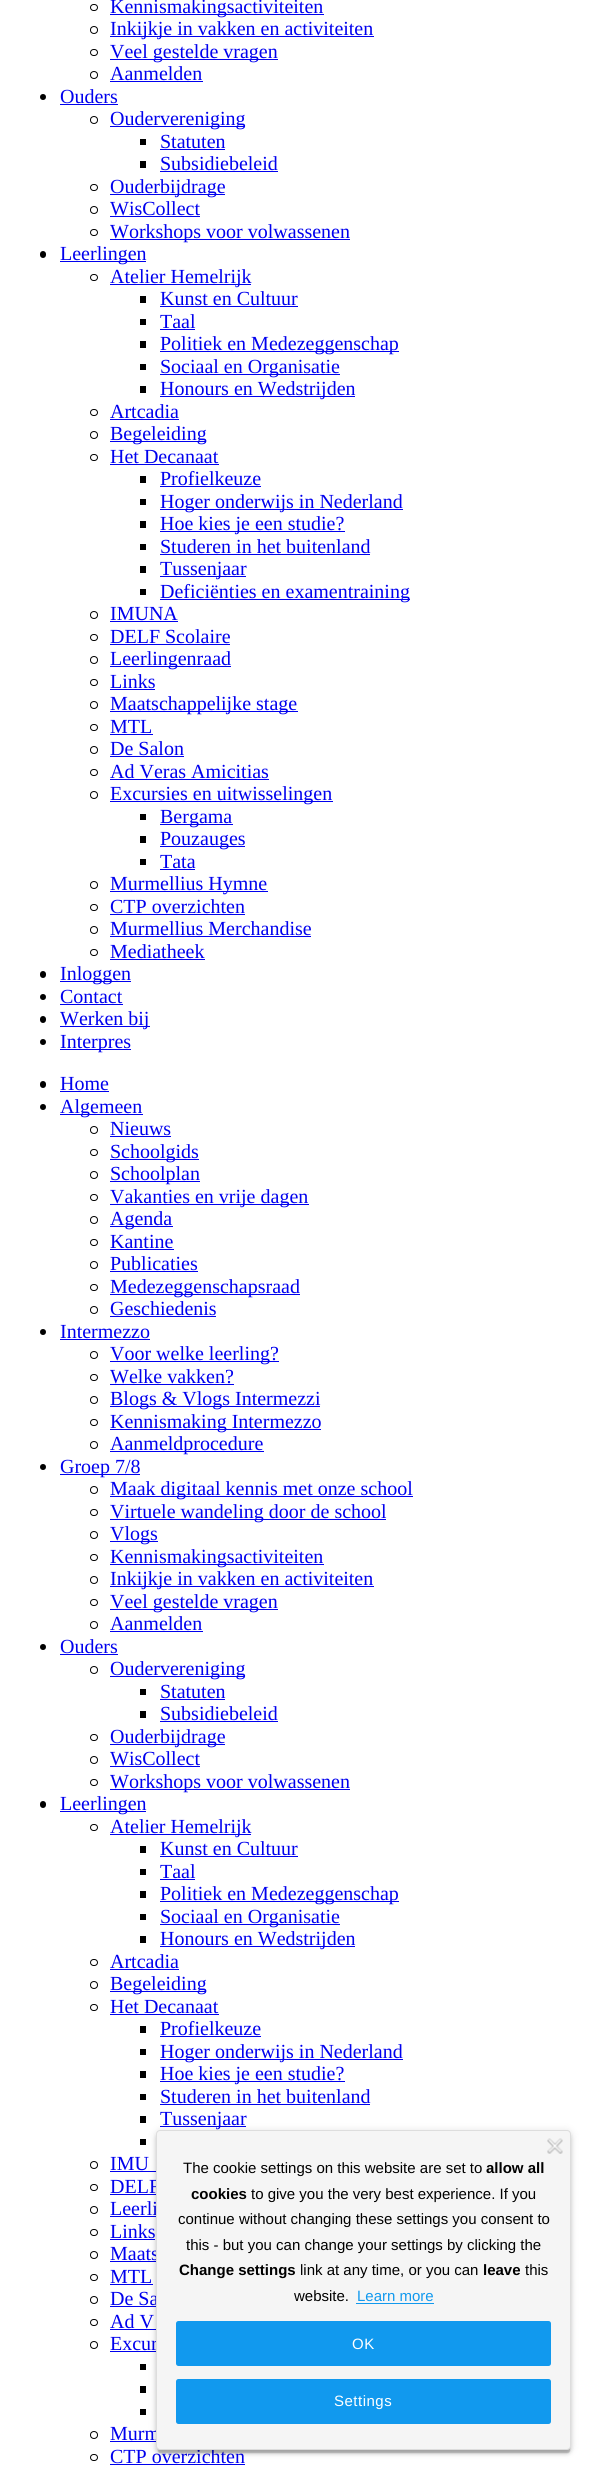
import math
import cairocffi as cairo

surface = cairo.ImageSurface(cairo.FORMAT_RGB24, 596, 2475)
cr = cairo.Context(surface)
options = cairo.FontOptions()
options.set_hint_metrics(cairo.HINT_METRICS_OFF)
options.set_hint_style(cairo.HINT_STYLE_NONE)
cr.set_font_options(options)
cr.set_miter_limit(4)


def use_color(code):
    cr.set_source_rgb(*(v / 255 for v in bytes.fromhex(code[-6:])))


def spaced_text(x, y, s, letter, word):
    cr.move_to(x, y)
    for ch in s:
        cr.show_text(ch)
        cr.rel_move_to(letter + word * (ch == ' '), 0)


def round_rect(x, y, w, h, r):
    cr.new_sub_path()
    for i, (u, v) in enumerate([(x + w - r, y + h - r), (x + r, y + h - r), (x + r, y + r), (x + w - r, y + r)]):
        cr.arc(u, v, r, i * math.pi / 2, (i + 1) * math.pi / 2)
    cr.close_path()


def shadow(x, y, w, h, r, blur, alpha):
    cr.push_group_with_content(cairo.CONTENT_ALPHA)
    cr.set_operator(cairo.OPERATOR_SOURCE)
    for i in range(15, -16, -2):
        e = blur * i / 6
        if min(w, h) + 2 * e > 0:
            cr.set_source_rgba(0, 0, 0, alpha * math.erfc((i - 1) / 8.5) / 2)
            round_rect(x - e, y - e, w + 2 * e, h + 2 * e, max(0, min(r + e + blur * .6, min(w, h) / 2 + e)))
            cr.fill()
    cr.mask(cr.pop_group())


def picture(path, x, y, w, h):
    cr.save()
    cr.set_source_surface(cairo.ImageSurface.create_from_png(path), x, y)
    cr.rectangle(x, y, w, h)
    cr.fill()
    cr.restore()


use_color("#ffffff")
cr.paint()
round_rect(90.5, 4.5, 7, 6, 3)
use_color("#000000")
cr.set_line_width(1)
cr.stroke()
use_color("#0000ee")
cr.rectangle(110, 14, 214, 1)
cr.fill()
cr.select_font_face("Liberation Serif")
cr.set_font_size(20)
cr.move_to(110, 13)
cr.show_text("Kennismakingsactiviteiten")
cr.new_path()
cr.arc(94, 30, 3.5, 0, 2 * math.pi)
use_color("#000000")
cr.stroke()
use_color("#0000ee")
cr.rectangle(110, 36, 264, 1)
cr.fill()
cr.move_to(110, 35)
cr.show_text("Inkijkje in vakken en activiteiten")
round_rect(90.5, 49.5, 7, 6, 3)
use_color("#000000")
cr.stroke()
use_color("#0000ee")
cr.rectangle(110, 59, 168, 1)
cr.fill()
cr.move_to(110, 58)
cr.show_text("Veel gestelde vragen")
cr.new_path()
cr.arc(94, 75, 3.5, 0, 2 * math.pi)
use_color("#000000")
cr.stroke()
use_color("#0000ee")
cr.move_to(110, 80)
cr.show_text("Aanmelden")
cr.rectangle(110, 81, 93, 1)
cr.fill()
use_color("#000000")
cr.arc(43, 97, 3, 0, 2 * math.pi)
cr.fill()
use_color("#0000ee")
cr.move_to(60, 103)
cr.show_text("Ouders")
cr.rectangle(60, 104, 58, 1)
cr.fill()
cr.arc(94, 120, 3.5, 0, 2 * math.pi)
use_color("#000000")
cr.stroke()
use_color("#0000ee")
cr.rectangle(110, 126, 135, 1)
cr.fill()
cr.move_to(110, 125)
cr.show_text("Oudervereniging")
use_color("#000000")
cr.rectangle(140, 139, 6, 6)
cr.fill()
use_color("#0000ee")
cr.move_to(160, 148)
cr.show_text("Statuten")
cr.rectangle(160, 149, 65, 1)
cr.fill()
use_color("#000000")
cr.rectangle(140, 161, 6, 7)
cr.fill()
use_color("#0000ee")
cr.move_to(160, 170)
cr.show_text("Subsidiebeleid")
cr.rectangle(160, 171, 118, 1)
cr.fill()
round_rect(90.5, 184.5, 7, 6, 3)
use_color("#000000")
cr.stroke()
use_color("#0000ee")
cr.rectangle(110, 194, 115, 1)
cr.fill()
cr.move_to(110, 193)
cr.show_text("Ouderbijdrage")
cr.new_path()
cr.arc(94, 210, 3.5, 0, 2 * math.pi)
use_color("#000000")
cr.stroke()
use_color("#0000ee")
cr.move_to(110, 215)
cr.show_text("WisCollect")
cr.rectangle(110, 216, 90, 1)
cr.fill()
round_rect(90.5, 229.5, 7, 6, 3)
use_color("#000000")
cr.stroke()
use_color("#0000ee")
cr.rectangle(110, 239, 240, 1)
cr.fill()
cr.move_to(110, 238)
cr.show_text("Workshops voor volwassenen")
use_color("#000000")
round_rect(40, 251, 6, 7, 3)
cr.fill()
use_color("#0000ee")
cr.rectangle(60, 261, 86, 1)
cr.fill()
cr.move_to(60, 260)
cr.show_text("Leerlingen")
round_rect(90.5, 274.5, 7, 6, 3)
use_color("#000000")
cr.stroke()
use_color("#0000ee")
cr.rectangle(110, 284, 141, 1)
cr.fill()
cr.move_to(110, 283)
cr.show_text("Atelier Hemelrijk")
use_color("#000000")
cr.rectangle(140, 296, 6, 7)
cr.fill()
use_color("#0000ee")
cr.move_to(160, 305)
cr.show_text("Kunst en Cultuur")
cr.rectangle(160, 306, 138, 1)
cr.fill()
use_color("#000000")
cr.rectangle(140, 319, 6, 6)
cr.fill()
use_color("#0000ee")
cr.move_to(160, 328)
cr.show_text("Taal")
cr.rectangle(160, 329, 35, 1)
cr.fill()
use_color("#000000")
cr.rectangle(140, 341, 6, 7)
cr.fill()
use_color("#0000ee")
cr.rectangle(160, 351, 239, 1)
cr.fill()
cr.move_to(160, 350)
cr.show_text("Politiek en Medezeggenschap")
use_color("#000000")
cr.rectangle(140, 364, 6, 6)
cr.fill()
use_color("#0000ee")
cr.rectangle(160, 374, 180, 1)
cr.fill()
cr.move_to(160, 373)
cr.show_text("Sociaal en Organisatie")
use_color("#000000")
cr.rectangle(140, 386, 6, 7)
cr.fill()
use_color("#0000ee")
cr.rectangle(160, 396, 195, 1)
cr.fill()
cr.move_to(160, 395)
cr.show_text("Honours en Wedstrijden")
round_rect(90.5, 409.5, 7, 6, 3)
use_color("#000000")
cr.stroke()
use_color("#0000ee")
cr.move_to(110, 418)
cr.show_text("Artcadia")
cr.rectangle(110, 419, 69, 1)
cr.fill()
cr.arc(94, 435, 3.5, 0, 2 * math.pi)
use_color("#000000")
cr.stroke()
use_color("#0000ee")
cr.rectangle(110, 441, 96, 1)
cr.fill()
cr.move_to(110, 440)
cr.show_text("Begeleiding")
round_rect(90.5, 454.5, 7, 6, 3)
use_color("#000000")
cr.stroke()
use_color("#0000ee")
cr.move_to(110, 463)
cr.show_text("Het Decanaat")
cr.rectangle(110, 464, 109, 1)
cr.fill()
use_color("#000000")
cr.rectangle(140, 476, 6, 7)
cr.fill()
use_color("#0000ee")
cr.move_to(160, 485)
cr.show_text("Profielkeuze")
cr.rectangle(160, 486, 101, 1)
cr.fill()
use_color("#000000")
cr.rectangle(140, 499, 6, 6)
cr.fill()
use_color("#0000ee")
cr.rectangle(160, 509, 243, 1)
cr.fill()
cr.move_to(160, 508)
cr.show_text("Hoger onderwijs in Nederland")
use_color("#000000")
cr.rectangle(140, 521, 6, 7)
cr.fill()
use_color("#0000ee")
cr.rectangle(160, 531, 185, 1)
cr.fill()
cr.move_to(160, 530)
cr.show_text("Hoe kies je een studie?")
use_color("#000000")
cr.rectangle(140, 544, 6, 6)
cr.fill()
use_color("#0000ee")
cr.move_to(160, 553)
cr.show_text("Studeren in het buitenland")
cr.rectangle(160, 554, 210, 1)
cr.fill()
use_color("#000000")
cr.rectangle(140, 566, 6, 7)
cr.fill()
use_color("#0000ee")
cr.rectangle(160, 576, 86, 1)
cr.fill()
cr.move_to(160, 575)
cr.show_text("Tussenjaar")
use_color("#000000")
cr.rectangle(140, 589, 6, 6)
cr.fill()
use_color("#0000ee")
cr.rectangle(160, 599, 250, 1)
cr.fill()
cr.move_to(160, 598)
cr.show_text("Deficiënties en examentraining")
cr.new_path()
cr.arc(94, 615, 3.5, 0, 2 * math.pi)
use_color("#000000")
cr.stroke()
use_color("#0000ee")
cr.move_to(110, 620)
cr.show_text("IMUNA")
cr.rectangle(110, 621, 68, 1)
cr.fill()
round_rect(90.5, 634.5, 7, 6, 3)
use_color("#000000")
cr.stroke()
use_color("#0000ee")
cr.move_to(110, 643)
cr.show_text("DELF Scolaire")
cr.rectangle(110, 644, 120, 1)
cr.fill()
cr.arc(94, 660, 3.5, 0, 2 * math.pi)
use_color("#000000")
cr.stroke()
use_color("#0000ee")
cr.rectangle(110, 666, 121, 1)
cr.fill()
cr.move_to(110, 665)
cr.show_text("Leerlingenraad")
round_rect(90.5, 679.5, 7, 6, 3)
use_color("#000000")
cr.stroke()
use_color("#0000ee")
cr.move_to(110, 688)
cr.show_text("Links")
cr.rectangle(110, 689, 45, 1)
cr.fill()
cr.arc(94, 705, 3.5, 0, 2 * math.pi)
use_color("#000000")
cr.stroke()
use_color("#0000ee")
cr.rectangle(110, 711, 188, 1)
cr.fill()
cr.move_to(110, 710)
cr.show_text("Maatschappelijke stage")
round_rect(90.5, 724.5, 7, 6, 3)
use_color("#000000")
cr.stroke()
use_color("#0000ee")
cr.move_to(110, 733)
cr.show_text("MTL")
cr.rectangle(110, 734, 43, 1)
cr.fill()
cr.arc(94, 750, 3.5, 0, 2 * math.pi)
use_color("#000000")
cr.stroke()
use_color("#0000ee")
cr.move_to(110, 755)
cr.show_text("De Salon")
cr.rectangle(110, 756, 74, 1)
cr.fill()
round_rect(90.5, 769.5, 7, 6, 3)
use_color("#000000")
cr.stroke()
use_color("#0000ee")
cr.move_to(110, 778)
cr.show_text("Ad Veras Amicitias")
cr.rectangle(110, 779, 159, 1)
cr.fill()
cr.arc(94, 795, 3.5, 0, 2 * math.pi)
use_color("#000000")
cr.stroke()
use_color("#0000ee")
cr.rectangle(110, 801, 223, 1)
cr.fill()
cr.move_to(110, 800)
cr.show_text("Excursies en uitwisselingen")
use_color("#000000")
cr.rectangle(140, 814, 6, 6)
cr.fill()
use_color("#0000ee")
cr.rectangle(160, 824, 73, 1)
cr.fill()
cr.move_to(160, 823)
cr.show_text("Bergama")
use_color("#000000")
cr.rectangle(140, 836, 6, 7)
cr.fill()
use_color("#0000ee")
cr.rectangle(160, 846, 85, 1)
cr.fill()
cr.move_to(160, 845)
cr.show_text("Pouzauges")
use_color("#000000")
cr.rectangle(140, 859, 6, 6)
cr.fill()
use_color("#0000ee")
cr.move_to(160, 868)
cr.show_text("Tata")
cr.rectangle(160, 869, 35, 1)
cr.fill()
cr.arc(94, 885, 3.5, 0, 2 * math.pi)
use_color("#000000")
cr.stroke()
use_color("#0000ee")
cr.rectangle(110, 891, 158, 1)
cr.fill()
cr.move_to(110, 890)
cr.show_text("Murmellius Hymne")
round_rect(90.5, 904.5, 7, 6, 3)
use_color("#000000")
cr.stroke()
use_color("#0000ee")
cr.move_to(110, 913)
cr.show_text("CTP overzichten")
cr.rectangle(110, 914, 135, 1)
cr.fill()
cr.arc(94, 930, 3.5, 0, 2 * math.pi)
use_color("#000000")
cr.stroke()
use_color("#0000ee")
cr.move_to(110, 935)
cr.show_text("Murmellius Merchandise")
cr.rectangle(110, 936, 201, 1)
cr.fill()
round_rect(90.5, 949.5, 7, 6, 3)
use_color("#000000")
cr.stroke()
use_color("#0000ee")
cr.move_to(110, 958)
cr.show_text("Mediatheek")
cr.rectangle(110, 959, 95, 1)
cr.fill()
use_color("#000000")
round_rect(40, 971, 6, 7, 3)
cr.fill()
use_color("#0000ee")
cr.rectangle(60, 981, 71, 1)
cr.fill()
cr.move_to(60, 980)
cr.show_text("Inloggen")
use_color("#000000")
cr.new_path()
cr.arc(43, 997, 3, 0, 2 * math.pi)
cr.fill()
use_color("#0000ee")
cr.move_to(60, 1003)
cr.show_text("Contact")
cr.rectangle(60, 1004, 63, 1)
cr.fill()
use_color("#000000")
round_rect(40, 1016, 6, 7, 3)
cr.fill()
use_color("#0000ee")
cr.rectangle(60, 1026, 90, 1)
cr.fill()
cr.move_to(60, 1025)
cr.show_text("Werken bij")
use_color("#000000")
cr.new_path()
cr.arc(43, 1042, 3, 0, 2 * math.pi)
cr.fill()
use_color("#0000ee")
cr.rectangle(60, 1049, 71, 1)
cr.fill()
cr.move_to(60, 1048)
cr.show_text("Interpres")
use_color("#000000")
round_rect(40, 1081, 6, 7, 3)
cr.fill()
use_color("#0000ee")
cr.move_to(60, 1090)
cr.show_text("Home")
cr.rectangle(60, 1091, 49, 1)
cr.fill()
use_color("#000000")
cr.arc(43, 1107, 3, 0, 2 * math.pi)
cr.fill()
use_color("#0000ee")
cr.rectangle(60, 1114, 83, 1)
cr.fill()
cr.move_to(60, 1113)
cr.show_text("Algemeen")
cr.new_path()
cr.arc(94, 1130, 3.5, 0, 2 * math.pi)
use_color("#000000")
cr.stroke()
use_color("#0000ee")
cr.move_to(110, 1135)
cr.show_text("Nieuws")
cr.rectangle(110, 1136, 61, 1)
cr.fill()
round_rect(90.5, 1149.5, 7, 6, 3)
use_color("#000000")
cr.stroke()
use_color("#0000ee")
cr.rectangle(110, 1159, 89, 1)
cr.fill()
cr.move_to(110, 1158)
cr.show_text("Schoolgids")
cr.new_path()
cr.arc(94, 1175, 3.5, 0, 2 * math.pi)
use_color("#000000")
cr.stroke()
use_color("#0000ee")
cr.rectangle(110, 1181, 90, 1)
cr.fill()
cr.move_to(110, 1180)
cr.show_text("Schoolplan")
round_rect(90.5, 1194.5, 7, 6, 3)
use_color("#000000")
cr.stroke()
use_color("#0000ee")
cr.rectangle(110, 1204, 199, 1)
cr.fill()
cr.move_to(110, 1203)
cr.show_text("Vakanties en vrije dagen")
cr.new_path()
cr.arc(94, 1220, 3.5, 0, 2 * math.pi)
use_color("#000000")
cr.stroke()
use_color("#0000ee")
cr.rectangle(110, 1226, 63, 1)
cr.fill()
cr.move_to(110, 1225)
cr.show_text("Agenda")
round_rect(90.5, 1239.5, 7, 6, 3)
use_color("#000000")
cr.stroke()
use_color("#0000ee")
cr.move_to(110, 1248)
cr.show_text("Kantine")
cr.rectangle(110, 1249, 64, 1)
cr.fill()
cr.arc(94, 1265, 3.5, 0, 2 * math.pi)
use_color("#000000")
cr.stroke()
use_color("#0000ee")
cr.move_to(110, 1270)
cr.show_text("Publicaties")
cr.rectangle(110, 1271, 88, 1)
cr.fill()
round_rect(90.5, 1284.5, 7, 6, 3)
use_color("#000000")
cr.stroke()
use_color("#0000ee")
cr.rectangle(110, 1294, 190, 1)
cr.fill()
cr.move_to(110, 1293)
cr.show_text("Medezeggenschapsraad")
cr.new_path()
cr.arc(94, 1310, 3.5, 0, 2 * math.pi)
use_color("#000000")
cr.stroke()
use_color("#0000ee")
cr.move_to(110, 1315)
cr.show_text("Geschiedenis")
cr.rectangle(110, 1316, 106, 1)
cr.fill()
use_color("#000000")
cr.arc(43, 1332, 3, 0, 2 * math.pi)
cr.fill()
use_color("#0000ee")
cr.move_to(60, 1338)
cr.show_text("Intermezzo")
cr.rectangle(60, 1339, 90, 1)
cr.fill()
cr.arc(94, 1355, 3.5, 0, 2 * math.pi)
use_color("#000000")
cr.stroke()
use_color("#0000ee")
cr.rectangle(110, 1361, 169, 1)
cr.fill()
cr.move_to(110, 1360)
cr.show_text("Voor welke leerling?")
round_rect(90.5, 1374.5, 7, 6, 3)
use_color("#000000")
cr.stroke()
use_color("#0000ee")
cr.move_to(110, 1383)
cr.show_text("Welke vakken?")
cr.rectangle(110, 1384, 124, 1)
cr.fill()
cr.arc(94, 1400, 3.5, 0, 2 * math.pi)
use_color("#000000")
cr.stroke()
use_color("#0000ee")
cr.rectangle(110, 1406, 210, 1)
cr.fill()
cr.move_to(110, 1405)
cr.show_text("Blogs & Vlogs Intermezzi")
round_rect(90.5, 1419.5, 7, 6, 3)
use_color("#000000")
cr.stroke()
use_color("#0000ee")
cr.rectangle(110, 1429, 211, 1)
cr.fill()
cr.move_to(110, 1428)
cr.show_text("Kennismaking Intermezzo")
cr.new_path()
cr.arc(94, 1445, 3.5, 0, 2 * math.pi)
use_color("#000000")
cr.stroke()
use_color("#0000ee")
cr.rectangle(110, 1451, 154, 1)
cr.fill()
cr.move_to(110, 1450)
cr.show_text("Aanmeldprocedure")
use_color("#000000")
cr.new_path()
cr.arc(43, 1467, 3, 0, 2 * math.pi)
cr.fill()
use_color("#0000ee")
cr.rectangle(60, 1474, 80, 1)
cr.fill()
cr.move_to(60, 1473)
cr.show_text("Groep 7/8")
cr.new_path()
cr.arc(94, 1490, 3.5, 0, 2 * math.pi)
use_color("#000000")
cr.stroke()
use_color("#0000ee")
cr.rectangle(110, 1496, 303, 1)
cr.fill()
cr.move_to(110, 1495)
cr.show_text("Maak digitaal kennis met onze school")
round_rect(90.5, 1509.5, 7, 6, 3)
use_color("#000000")
cr.stroke()
use_color("#0000ee")
cr.rectangle(110, 1519, 276, 1)
cr.fill()
cr.move_to(110, 1518)
cr.show_text("Virtuele wandeling door de school")
cr.new_path()
cr.arc(94, 1535, 3.5, 0, 2 * math.pi)
use_color("#000000")
cr.stroke()
use_color("#0000ee")
cr.rectangle(110, 1541, 48, 1)
cr.fill()
cr.move_to(110, 1540)
cr.show_text("Vlogs")
round_rect(90.5, 1554.5, 7, 6, 3)
use_color("#000000")
cr.stroke()
use_color("#0000ee")
cr.rectangle(110, 1564, 214, 1)
cr.fill()
cr.move_to(110, 1563)
cr.show_text("Kennismakingsactiviteiten")
cr.new_path()
cr.arc(94, 1580, 3.5, 0, 2 * math.pi)
use_color("#000000")
cr.stroke()
use_color("#0000ee")
cr.rectangle(110, 1586, 264, 1)
cr.fill()
cr.move_to(110, 1585)
cr.show_text("Inkijkje in vakken en activiteiten")
round_rect(90.5, 1599.5, 7, 6, 3)
use_color("#000000")
cr.stroke()
use_color("#0000ee")
cr.rectangle(110, 1609, 168, 1)
cr.fill()
cr.move_to(110, 1608)
cr.show_text("Veel gestelde vragen")
cr.new_path()
cr.arc(94, 1625, 3.5, 0, 2 * math.pi)
use_color("#000000")
cr.stroke()
use_color("#0000ee")
cr.move_to(110, 1630)
cr.show_text("Aanmelden")
cr.rectangle(110, 1631, 93, 1)
cr.fill()
use_color("#000000")
cr.arc(43, 1647, 3, 0, 2 * math.pi)
cr.fill()
use_color("#0000ee")
cr.move_to(60, 1653)
cr.show_text("Ouders")
cr.rectangle(60, 1654, 58, 1)
cr.fill()
cr.arc(94, 1670, 3.5, 0, 2 * math.pi)
use_color("#000000")
cr.stroke()
use_color("#0000ee")
cr.rectangle(110, 1676, 135, 1)
cr.fill()
cr.move_to(110, 1675)
cr.show_text("Oudervereniging")
use_color("#000000")
cr.rectangle(140, 1689, 6, 6)
cr.fill()
use_color("#0000ee")
cr.move_to(160, 1698)
cr.show_text("Statuten")
cr.rectangle(160, 1699, 65, 1)
cr.fill()
use_color("#000000")
cr.rectangle(140, 1711, 6, 7)
cr.fill()
use_color("#0000ee")
cr.move_to(160, 1720)
cr.show_text("Subsidiebeleid")
cr.rectangle(160, 1721, 118, 1)
cr.fill()
round_rect(90.5, 1734.5, 7, 6, 3)
use_color("#000000")
cr.stroke()
use_color("#0000ee")
cr.rectangle(110, 1744, 115, 1)
cr.fill()
cr.move_to(110, 1743)
cr.show_text("Ouderbijdrage")
cr.new_path()
cr.arc(94, 1760, 3.5, 0, 2 * math.pi)
use_color("#000000")
cr.stroke()
use_color("#0000ee")
cr.move_to(110, 1765)
cr.show_text("WisCollect")
cr.rectangle(110, 1766, 90, 1)
cr.fill()
round_rect(90.5, 1779.5, 7, 6, 3)
use_color("#000000")
cr.stroke()
use_color("#0000ee")
cr.rectangle(110, 1789, 240, 1)
cr.fill()
cr.move_to(110, 1788)
cr.show_text("Workshops voor volwassenen")
use_color("#000000")
round_rect(40, 1801, 6, 7, 3)
cr.fill()
use_color("#0000ee")
cr.rectangle(60, 1811, 86, 1)
cr.fill()
cr.move_to(60, 1810)
cr.show_text("Leerlingen")
round_rect(90.5, 1824.5, 7, 6, 3)
use_color("#000000")
cr.stroke()
use_color("#0000ee")
cr.rectangle(110, 1834, 141, 1)
cr.fill()
cr.move_to(110, 1833)
cr.show_text("Atelier Hemelrijk")
use_color("#000000")
cr.rectangle(140, 1846, 6, 7)
cr.fill()
use_color("#0000ee")
cr.move_to(160, 1855)
cr.show_text("Kunst en Cultuur")
cr.rectangle(160, 1856, 138, 1)
cr.fill()
use_color("#000000")
cr.rectangle(140, 1869, 6, 6)
cr.fill()
use_color("#0000ee")
cr.move_to(160, 1878)
cr.show_text("Taal")
cr.rectangle(160, 1879, 35, 1)
cr.fill()
use_color("#000000")
cr.rectangle(140, 1891, 6, 7)
cr.fill()
use_color("#0000ee")
cr.rectangle(160, 1901, 239, 1)
cr.fill()
cr.move_to(160, 1900)
cr.show_text("Politiek en Medezeggenschap")
use_color("#000000")
cr.rectangle(140, 1914, 6, 6)
cr.fill()
use_color("#0000ee")
cr.rectangle(160, 1924, 180, 1)
cr.fill()
cr.move_to(160, 1923)
cr.show_text("Sociaal en Organisatie")
use_color("#000000")
cr.rectangle(140, 1936, 6, 7)
cr.fill()
use_color("#0000ee")
cr.rectangle(160, 1946, 195, 1)
cr.fill()
cr.move_to(160, 1945)
cr.show_text("Honours en Wedstrijden")
round_rect(90.5, 1959.5, 7, 6, 3)
use_color("#000000")
cr.stroke()
use_color("#0000ee")
cr.move_to(110, 1968)
cr.show_text("Artcadia")
cr.rectangle(110, 1969, 69, 1)
cr.fill()
cr.arc(94, 1985, 3.5, 0, 2 * math.pi)
use_color("#000000")
cr.stroke()
use_color("#0000ee")
cr.rectangle(110, 1991, 96, 1)
cr.fill()
cr.move_to(110, 1990)
cr.show_text("Begeleiding")
round_rect(90.5, 2004.5, 7, 6, 3)
use_color("#000000")
cr.stroke()
use_color("#0000ee")
cr.move_to(110, 2013)
cr.show_text("Het Decanaat")
cr.rectangle(110, 2014, 109, 1)
cr.fill()
use_color("#000000")
cr.rectangle(140, 2026, 6, 7)
cr.fill()
use_color("#0000ee")
cr.move_to(160, 2035)
cr.show_text("Profielkeuze")
cr.rectangle(160, 2036, 101, 1)
cr.fill()
use_color("#000000")
cr.rectangle(140, 2049, 6, 6)
cr.fill()
use_color("#0000ee")
cr.rectangle(160, 2059, 243, 1)
cr.fill()
cr.move_to(160, 2058)
cr.show_text("Hoger onderwijs in Nederland")
use_color("#000000")
cr.rectangle(140, 2071, 6, 7)
cr.fill()
use_color("#0000ee")
cr.rectangle(160, 2081, 185, 1)
cr.fill()
cr.move_to(160, 2080)
cr.show_text("Hoe kies je een studie?")
use_color("#000000")
cr.rectangle(140, 2094, 6, 6)
cr.fill()
use_color("#0000ee")
cr.move_to(160, 2103)
cr.show_text("Studeren in het buitenland")
cr.rectangle(160, 2104, 210, 1)
cr.fill()
use_color("#000000")
cr.rectangle(140, 2116, 6, 7)
cr.fill()
use_color("#0000ee")
cr.rectangle(160, 2126, 86, 1)
cr.fill()
cr.move_to(160, 2125)
cr.show_text("Tussenjaar")
use_color("#000000")
cr.rectangle(140, 2139, 6, 6)
cr.fill()
cr.arc(94, 2165, 3.5, 0, 2 * math.pi)
cr.stroke()
use_color("#0000ee")
cr.move_to(110, 2170)
cr.show_text("IMU")
cr.rectangle(110, 2171, 46, 1)
cr.fill()
round_rect(90.5, 2184.5, 7, 6, 3)
use_color("#000000")
cr.stroke()
use_color("#0000ee")
cr.move_to(110, 2193)
cr.show_text("DELF")
cr.rectangle(110, 2194, 46, 1)
cr.fill()
cr.arc(94, 2210, 3.5, 0, 2 * math.pi)
use_color("#000000")
cr.stroke()
use_color("#0000ee")
cr.move_to(110, 2215)
cr.show_text("Leerli")
cr.rectangle(110, 2216, 46, 1)
cr.fill()
round_rect(90.5, 2229.5, 7, 6, 3)
use_color("#000000")
cr.stroke()
use_color("#0000ee")
cr.move_to(110, 2238)
cr.show_text("Links")
cr.rectangle(110, 2239, 45, 1)
cr.fill()
cr.arc(94, 2255, 3.5, 0, 2 * math.pi)
use_color("#000000")
cr.stroke()
use_color("#0000ee")
cr.move_to(110, 2260)
cr.show_text("Maats")
cr.rectangle(110, 2261, 46, 1)
cr.fill()
round_rect(90.5, 2274.5, 7, 6, 3)
use_color("#000000")
cr.stroke()
use_color("#0000ee")
cr.move_to(110, 2283)
cr.show_text("MTL")
cr.rectangle(110, 2284, 43, 1)
cr.fill()
cr.arc(94, 2300, 3.5, 0, 2 * math.pi)
use_color("#000000")
cr.stroke()
use_color("#0000ee")
cr.move_to(110, 2305)
cr.show_text("De Sa")
cr.rectangle(110, 2306, 46, 1)
cr.fill()
round_rect(90.5, 2319.5, 7, 6, 3)
use_color("#000000")
cr.stroke()
use_color("#0000ee")
cr.move_to(110, 2328)
cr.show_text("Ad V")
cr.rectangle(110, 2329, 46, 1)
cr.fill()
cr.arc(94, 2345, 3.5, 0, 2 * math.pi)
use_color("#000000")
cr.stroke()
use_color("#0000ee")
cr.move_to(110, 2350)
cr.show_text("Excur")
cr.rectangle(110, 2351, 46, 1)
cr.fill()
use_color("#000000")
cr.rectangle(140, 2364, 6, 6)
cr.fill()
cr.rectangle(140, 2386, 6, 7)
cr.fill()
cr.rectangle(140, 2409, 6, 6)
cr.fill()
cr.arc(94, 2435, 3.5, 0, 2 * math.pi)
cr.stroke()
use_color("#0000ee")
cr.move_to(110, 2440)
cr.show_text("Murm")
cr.rectangle(110, 2441, 46, 1)
cr.fill()
round_rect(90.5, 2454.5, 7, 6, 3)
use_color("#000000")
cr.stroke()
use_color("#0000ee")
cr.move_to(110, 2463)
cr.show_text("CTP overzichten")
cr.rectangle(110, 2464, 135, 1)
cr.fill()
use_color("#000000")
shadow(158, 2135, 412, 318, 2.5, 0.5, 0.2)
shadow(156, 2131, 415, 320, 4, 4.5, 0.12)
shadow(156, 2134, 415, 320, 4, 2, 0.14)
use_color("#f5f5f5")
round_rect(156.5, 2130.5, 414, 319, 3.5)
cr.fill_preserve()
use_color("#dddddd")
cr.stroke()
picture("img1.png", 547, 2138, 16, 16)
cr.select_font_face("Liberation Sans")
cr.set_font_size(15)
use_color("#000000")
cr.move_to(183, 2173)
cr.show_text("The cookie settings on this website are set to")
cr.select_font_face("Liberation Sans", cairo.FONT_SLANT_NORMAL, cairo.FONT_WEIGHT_BOLD)
cr.move_to(486, 2173)
cr.show_text("allow all")
cr.move_to(191, 2199)
cr.show_text("cookies")
cr.select_font_face("Liberation Sans")
cr.move_to(251, 2199)
cr.show_text("to give you the very best experience. If you")
cr.move_to(178, 2224)
cr.show_text("continue without changing these settings you consent to")
cr.move_to(186, 2250)
cr.show_text("this - but you can change your settings by clicking the")
cr.select_font_face("Liberation Sans", cairo.FONT_SLANT_NORMAL, cairo.FONT_WEIGHT_BOLD)
cr.move_to(179, 2275)
cr.show_text("Change settings")
cr.select_font_face("Liberation Sans")
cr.move_to(300, 2275)
cr.show_text("link at any time, or you can")
cr.select_font_face("Liberation Sans", cairo.FONT_SLANT_NORMAL, cairo.FONT_WEIGHT_BOLD)
cr.move_to(483, 2275)
cr.show_text("leave")
cr.select_font_face("Liberation Sans")
cr.move_to(525, 2275)
cr.show_text("this")
cr.move_to(294, 2301)
cr.show_text("website.")
use_color("#1199ee")
cr.move_to(357, 2301)
cr.show_text("Learn more")
cr.rectangle(356, 2303, 78, 1)
cr.fill()
round_rect(176, 2321, 375, 45, 2.5)
cr.fill()
use_color("#ffffff")
spaced_text(352, 2349, "OK", 0.5, 0)
use_color("#1199ee")
round_rect(176, 2379, 375, 45, 2.5)
cr.fill()
use_color("#ffffff")
spaced_text(334, 2406, "Settings", 0.5, 0)
surface.write_to_png("result.png")
